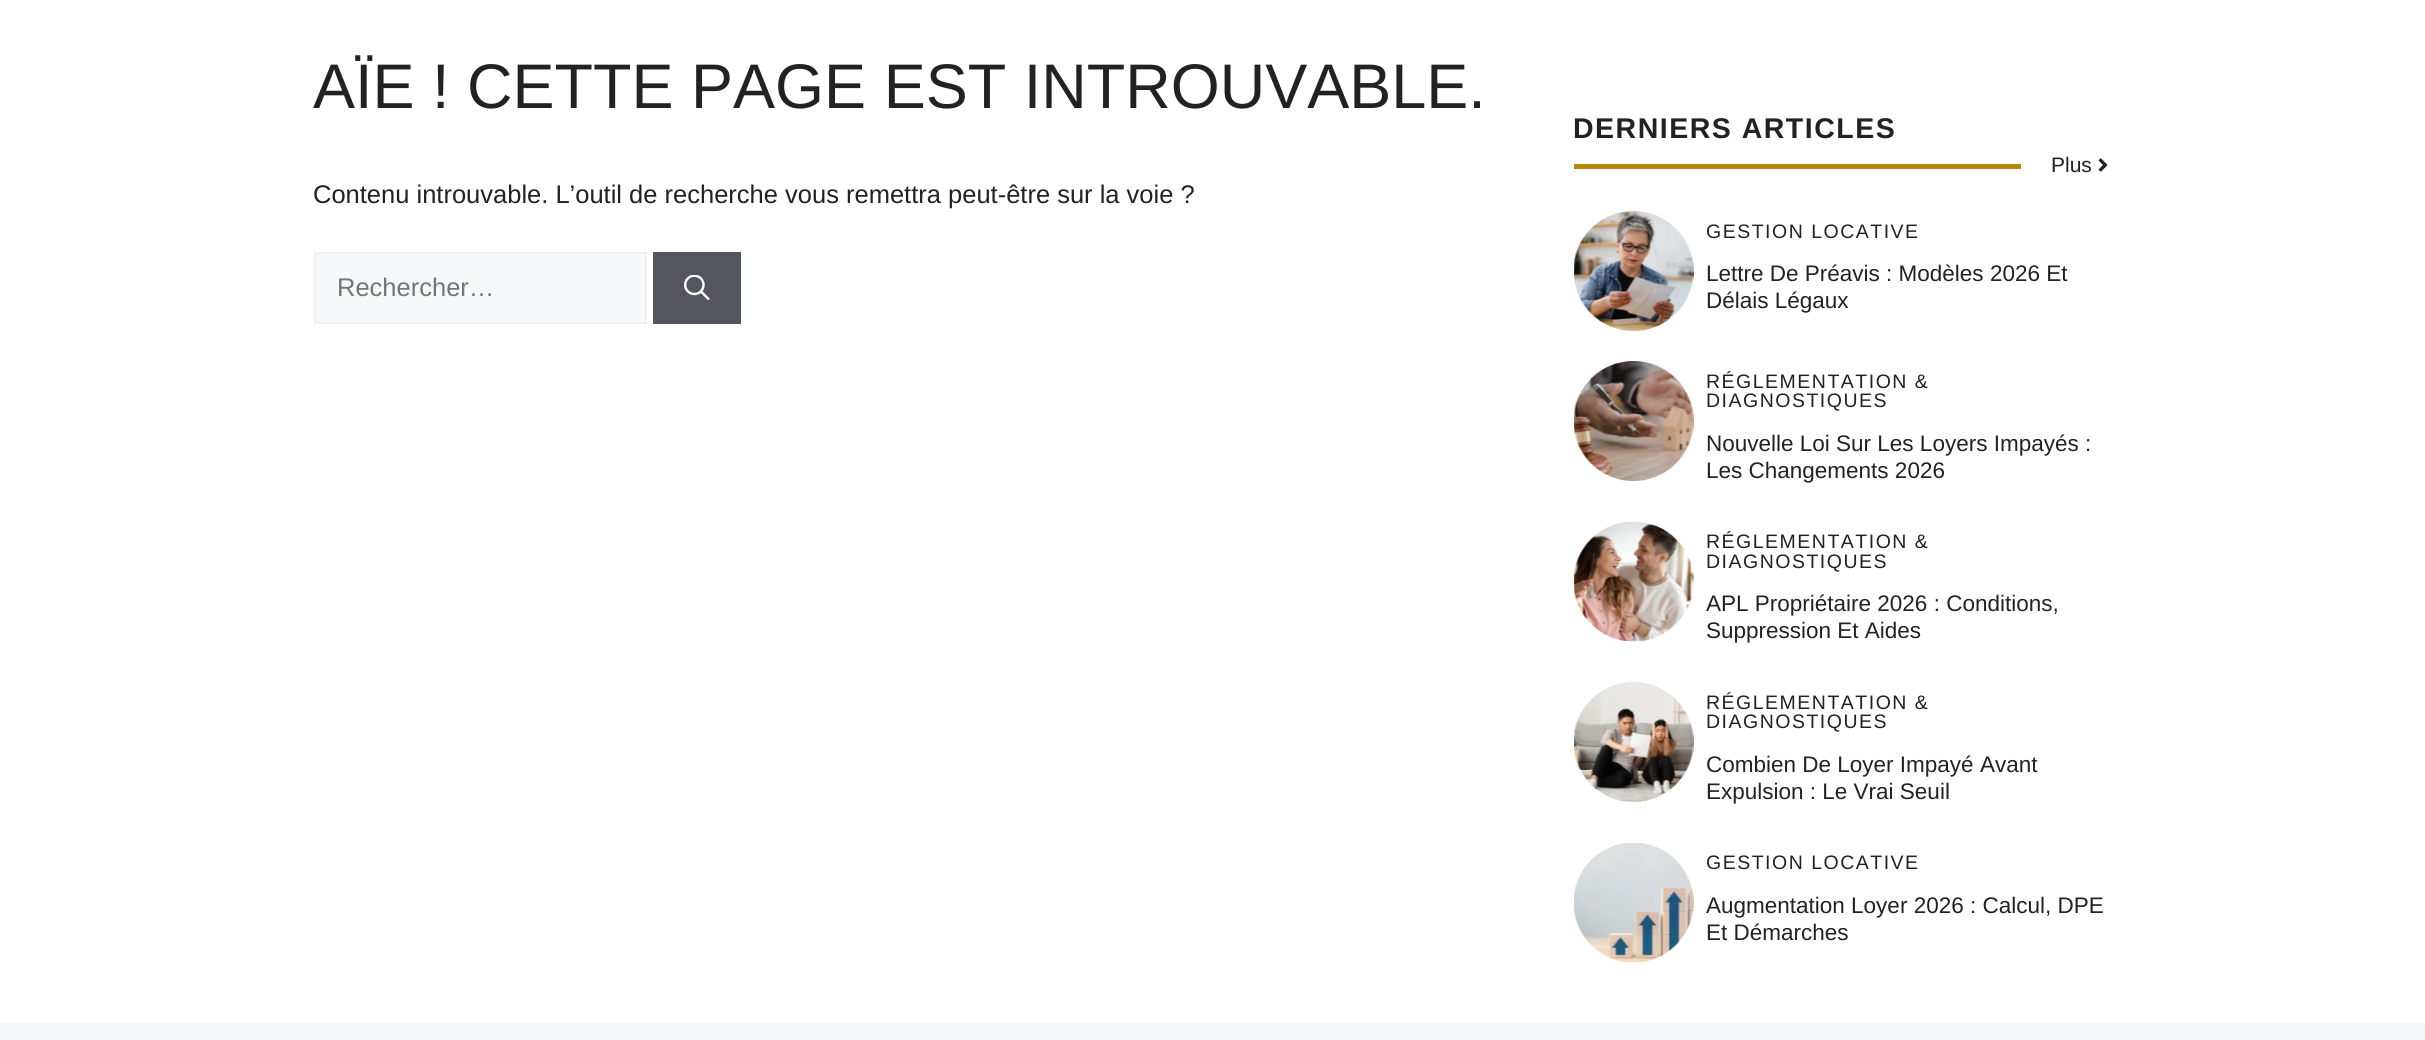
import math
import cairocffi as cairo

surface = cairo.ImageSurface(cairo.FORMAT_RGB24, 2425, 1040)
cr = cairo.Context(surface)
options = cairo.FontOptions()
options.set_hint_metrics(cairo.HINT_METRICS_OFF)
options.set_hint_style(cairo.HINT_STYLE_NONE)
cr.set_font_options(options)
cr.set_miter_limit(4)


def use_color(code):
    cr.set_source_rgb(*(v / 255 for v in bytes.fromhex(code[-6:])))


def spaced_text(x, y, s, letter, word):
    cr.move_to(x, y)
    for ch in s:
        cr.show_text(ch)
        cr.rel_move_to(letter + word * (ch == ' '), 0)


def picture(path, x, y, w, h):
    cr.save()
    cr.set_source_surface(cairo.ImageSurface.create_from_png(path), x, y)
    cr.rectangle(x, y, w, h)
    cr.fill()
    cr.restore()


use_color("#ffffff")
cr.paint()
cr.select_font_face("Liberation Sans")
cr.set_font_size(63)
use_color("#222222")
cr.move_to(313, 108)
cr.show_text("AÏE ! CETTE PAGE EST INTROUVABLE.")
cr.set_font_size(25.5)
cr.move_to(313, 203)
cr.show_text("Contenu introuvable. L’outil de recherche vous remettra peut-être sur la voie ?")
use_color("#f7f8f9")
cr.rectangle(315, 253, 331, 70)
cr.fill_preserve()
use_color("#f0f0f0")
cr.stroke()
use_color("#757575")
cr.move_to(337, 296)
cr.show_text("Rechercher…")
use_color("#55555e")
cr.rectangle(653, 252, 88, 72)
cr.fill()
picture("img1.png", 684, 275, 26, 25)
cr.select_font_face("Liberation Sans", cairo.FONT_SLANT_NORMAL, cairo.FONT_WEIGHT_BOLD)
cr.set_font_size(28.5)
use_color("#222222")
spaced_text(1573, 138, "DERNIERS ARTICLES", 1.5, 0)
use_color("#b8860b")
cr.rectangle(1574, 164, 447, 5)
cr.fill()
cr.select_font_face("Liberation Sans")
cr.set_font_size(21)
use_color("#222222")
cr.move_to(2051, 172)
cr.show_text("Plus")
picture("img2.png", 2098, 158, 10, 14)
picture("img3.png", 1574, 211, 120, 120)
cr.set_font_size(19.5)
spaced_text(1706, 238, "GESTION LOCATIVE", 1.5, 0)
cr.set_font_size(22.5)
cr.move_to(1706, 281)
cr.show_text("Lettre De Préavis : Modèles 2026 Et")
cr.move_to(1706, 308)
cr.show_text("Délais Légaux")
picture("img4.png", 1574, 361, 120, 120)
cr.set_font_size(19.5)
spaced_text(1706, 388, "RÉGLEMENTATION &", 1.5, 0)
spaced_text(1706, 407, "DIAGNOSTIQUES", 1.5, 0)
cr.set_font_size(22.5)
cr.move_to(1706, 451)
cr.show_text("Nouvelle Loi Sur Les Loyers Impayés :")
cr.move_to(1706, 478)
cr.show_text("Les Changements 2026")
picture("img5.png", 1574, 521, 120, 121)
cr.set_font_size(19.5)
spaced_text(1706, 548, "RÉGLEMENTATION &", 1.5, 0)
spaced_text(1706, 568, "DIAGNOSTIQUES", 1.5, 0)
cr.set_font_size(22.5)
cr.move_to(1706, 611)
cr.show_text("APL Propriétaire 2026 : Conditions,")
cr.move_to(1706, 638)
cr.show_text("Suppression Et Aides")
picture("img6.png", 1574, 682, 120, 120)
cr.set_font_size(19.5)
spaced_text(1706, 709, "RÉGLEMENTATION &", 1.5, 0)
spaced_text(1706, 728, "DIAGNOSTIQUES", 1.5, 0)
cr.set_font_size(22.5)
cr.move_to(1706, 772)
cr.show_text("Combien De Loyer Impayé Avant")
cr.move_to(1706, 799)
cr.show_text("Expulsion : Le Vrai Seuil")
picture("img7.png", 1574, 842, 120, 121)
cr.set_font_size(19.5)
spaced_text(1706, 869, "GESTION LOCATIVE", 1.5, 0)
cr.set_font_size(22.5)
cr.move_to(1706, 913)
cr.show_text("Augmentation Loyer 2026 : Calcul, DPE")
cr.move_to(1706, 940)
cr.show_text("Et Démarches")
use_color("#f7f8f9")
cr.rectangle(0, 1023, 2425, 17)
cr.fill()
surface.write_to_png("result.png")
